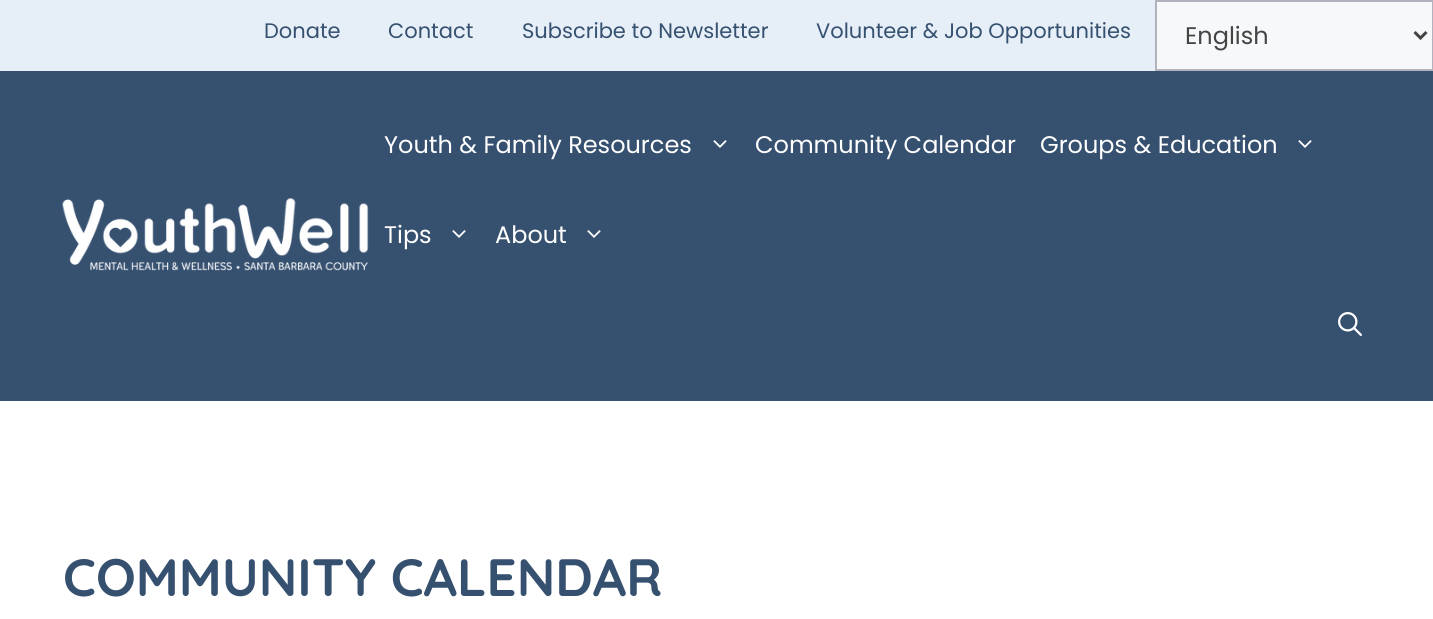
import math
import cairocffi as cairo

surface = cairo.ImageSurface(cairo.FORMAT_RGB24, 1433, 619)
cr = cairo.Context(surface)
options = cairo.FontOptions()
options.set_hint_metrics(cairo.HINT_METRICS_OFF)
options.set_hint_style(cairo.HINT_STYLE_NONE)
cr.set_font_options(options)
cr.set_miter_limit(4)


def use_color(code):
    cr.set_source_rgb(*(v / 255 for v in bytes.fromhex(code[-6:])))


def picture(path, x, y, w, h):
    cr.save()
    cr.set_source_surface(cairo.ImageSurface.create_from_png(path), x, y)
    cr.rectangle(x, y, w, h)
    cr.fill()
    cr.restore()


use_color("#365070")
cr.paint()
use_color("#e6eff8")
cr.rectangle(0, 0, 1155, 71)
cr.fill()
cr.select_font_face("Poppins")
cr.set_font_size(21)
use_color("#365070")
cr.move_to(264, 38)
cr.show_text("Donate")
cr.move_to(388, 38)
cr.show_text("Contact")
cr.move_to(522, 38)
cr.show_text("Subscribe to Newsletter")
cr.move_to(816, 38)
cr.show_text("Volunteer & Job Opportunities")
use_color("#f7f8f9")
cr.rectangle(1156, 1, 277, 69)
cr.fill_preserve()
use_color("#b2b2be")
cr.stroke()
cr.new_path()
cr.move_to(1414.5, 32)
cr.line_to(1420.5, 38)
cr.line_to(1426.5, 32)
use_color("#444444")
cr.set_line_width(3)
cr.stroke()
cr.set_font_size(24)
cr.move_to(1185, 44)
cr.show_text("English")
picture("img1.png", 62, 198, 307, 73)
use_color("#ffffff")
cr.move_to(384, 153)
cr.show_text("Youth & Family Resources")
picture("img2.png", 713, 140, 14, 8)
cr.move_to(755, 153)
cr.show_text("Community Calendar")
cr.move_to(1040, 153)
cr.show_text("Groups & Education")
picture("img2.png", 1298, 140, 14, 8)
cr.move_to(384, 243)
cr.show_text("Tips")
picture("img2.png", 452, 230, 14, 8)
cr.move_to(495, 243)
cr.show_text("About")
picture("img2.png", 587, 230, 14, 8)
picture("img3.png", 1338, 312, 24, 24)
cr.rectangle(0, 401, 1433, 218)
cr.fill()
cr.select_font_face("Quicksand", cairo.FONT_SLANT_NORMAL, cairo.FONT_WEIGHT_BOLD)
cr.set_font_size(52.5)
use_color("#365070")
cr.move_to(63, 596)
cr.show_text("COMMUNITY CALENDAR")
surface.write_to_png("result.png")
